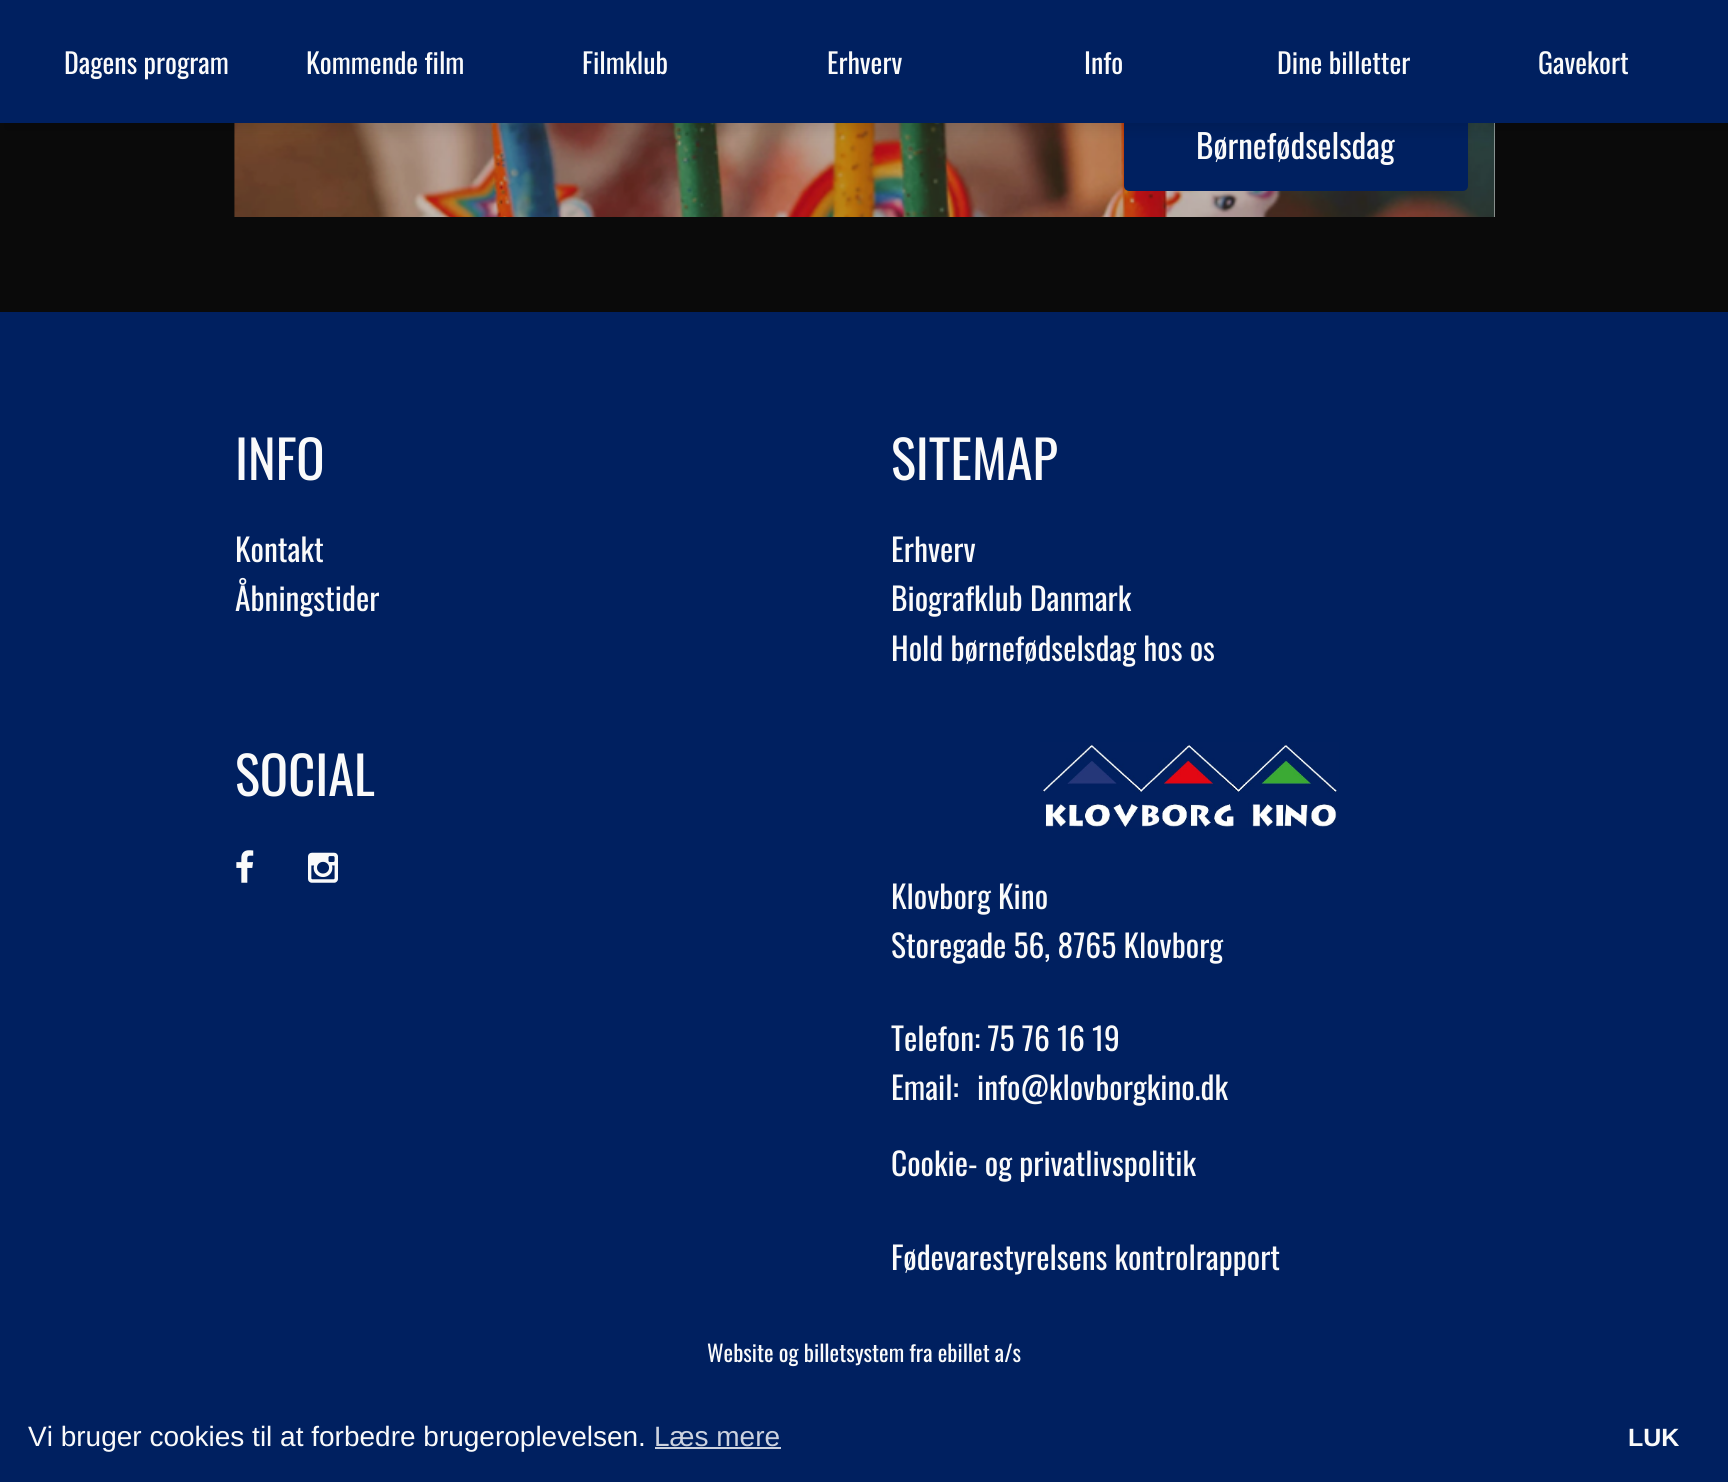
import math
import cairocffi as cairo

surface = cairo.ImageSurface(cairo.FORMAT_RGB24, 1728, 1482)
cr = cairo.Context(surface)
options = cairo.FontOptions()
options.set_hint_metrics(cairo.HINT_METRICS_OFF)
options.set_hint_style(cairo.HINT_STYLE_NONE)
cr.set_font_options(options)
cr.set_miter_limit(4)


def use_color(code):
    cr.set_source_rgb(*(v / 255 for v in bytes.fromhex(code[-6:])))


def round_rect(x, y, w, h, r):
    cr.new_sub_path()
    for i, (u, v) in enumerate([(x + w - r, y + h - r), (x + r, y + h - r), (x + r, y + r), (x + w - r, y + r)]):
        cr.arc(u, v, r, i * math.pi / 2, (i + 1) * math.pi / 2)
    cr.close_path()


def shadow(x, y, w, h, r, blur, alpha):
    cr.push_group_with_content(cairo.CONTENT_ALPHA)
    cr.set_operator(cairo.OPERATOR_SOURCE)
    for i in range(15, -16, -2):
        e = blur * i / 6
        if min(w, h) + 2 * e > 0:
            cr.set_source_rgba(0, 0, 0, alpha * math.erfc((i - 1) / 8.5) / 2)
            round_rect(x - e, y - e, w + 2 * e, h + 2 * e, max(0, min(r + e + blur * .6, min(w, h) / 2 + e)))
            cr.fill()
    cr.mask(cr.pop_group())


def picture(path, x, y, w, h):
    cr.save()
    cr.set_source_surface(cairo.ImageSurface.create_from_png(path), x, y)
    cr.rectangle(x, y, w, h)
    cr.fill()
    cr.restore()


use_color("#0a0a0a")
cr.paint()
use_color("#e6e6e6")
cr.rectangle(1494, 123, 1, 94)
cr.fill()
picture("img1.png", 234, 123, 1261, 94)
use_color("#002060")
round_rect(1126, 100, 340, 89, 3)
cr.fill_preserve()
cr.set_line_width(4)
cr.stroke()
use_color("#000000")
shadow(5, 7, 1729, 123, 0, 7, 0.11)
use_color("#002060")
cr.rectangle(0, 0, 1728, 123)
cr.fill()
cr.select_font_face("Oswald")
cr.set_font_size(28)
use_color("#fafafa")
cr.move_to(64, 74)
cr.show_text("Dagens program")
cr.move_to(306, 74)
cr.show_text("Kommende film")
cr.move_to(582, 74)
cr.show_text("Filmklub")
cr.move_to(827, 74)
cr.show_text("Erhverv")
cr.move_to(1084, 74)
cr.show_text("Info")
cr.move_to(1277, 74)
cr.show_text("Dine billetter")
cr.move_to(1538, 74)
cr.show_text("Gavekort")
cr.set_font_size(33.25)
cr.move_to(1196, 159)
cr.show_text("Børnefødselsdag")
use_color("#002060")
cr.rectangle(0, 312, 1728, 1170)
cr.fill()
cr.set_font_size(52.5)
use_color("#fafafa")
cr.move_to(235, 480)
cr.show_text("INFO")
cr.set_font_size(31.5)
cr.move_to(235, 562)
cr.show_text("Kontakt")
cr.move_to(235, 611)
cr.show_text("Åbningstider")
cr.set_font_size(52.5)
cr.move_to(891, 480)
cr.show_text("SITEMAP")
cr.set_font_size(31.5)
cr.move_to(891, 562)
cr.show_text("Erhverv")
cr.move_to(891, 611)
cr.show_text("Biografklub Danmark")
cr.move_to(891, 661)
cr.show_text("Hold børnefødselsdag hos os")
cr.set_font_size(52.5)
cr.move_to(235, 796)
cr.show_text("SOCIAL")
picture("img2.png", 236, 850, 18, 33)
picture("img3.png", 308, 852, 30, 31)
picture("img4.png", 1040, 742, 299, 86)
cr.set_font_size(31.5)
cr.move_to(891, 909)
cr.show_text("Klovborg Kino")
cr.move_to(891, 958)
cr.show_text("Storegade 56, 8765 Klovborg")
cr.move_to(891, 1051)
cr.show_text("Telefon: 75 76 16 19")
cr.move_to(891, 1100)
cr.show_text("Email:")
cr.move_to(977, 1100)
cr.show_text("info@klovborgkino.dk")
cr.move_to(891, 1176)
cr.show_text("Cookie- og privatlivspolitik")
cr.move_to(891, 1270)
cr.show_text("Fødevarestyrelsens kontrolrapport")
cr.set_font_size(22.75)
cr.move_to(707, 1362)
cr.show_text("Website og billetsystem fra ebillet a/s")
cr.select_font_face("Liberation Sans")
cr.set_font_size(28)
cr.move_to(28, 1446)
cr.show_text("Vi bruger cookies til at forbedre brugeroplevelsen.")
use_color("#ccd2df")
cr.move_to(654, 1446)
cr.show_text("Læs mere")
cr.rectangle(655, 1447, 126, 2)
cr.fill()
cr.select_font_face("Liberation Sans", cairo.FONT_SLANT_NORMAL, cairo.FONT_WEIGHT_BOLD)
cr.set_font_size(25)
use_color("#fafafa")
cr.move_to(1628, 1446)
cr.show_text("LUK")
surface.write_to_png("result.png")
